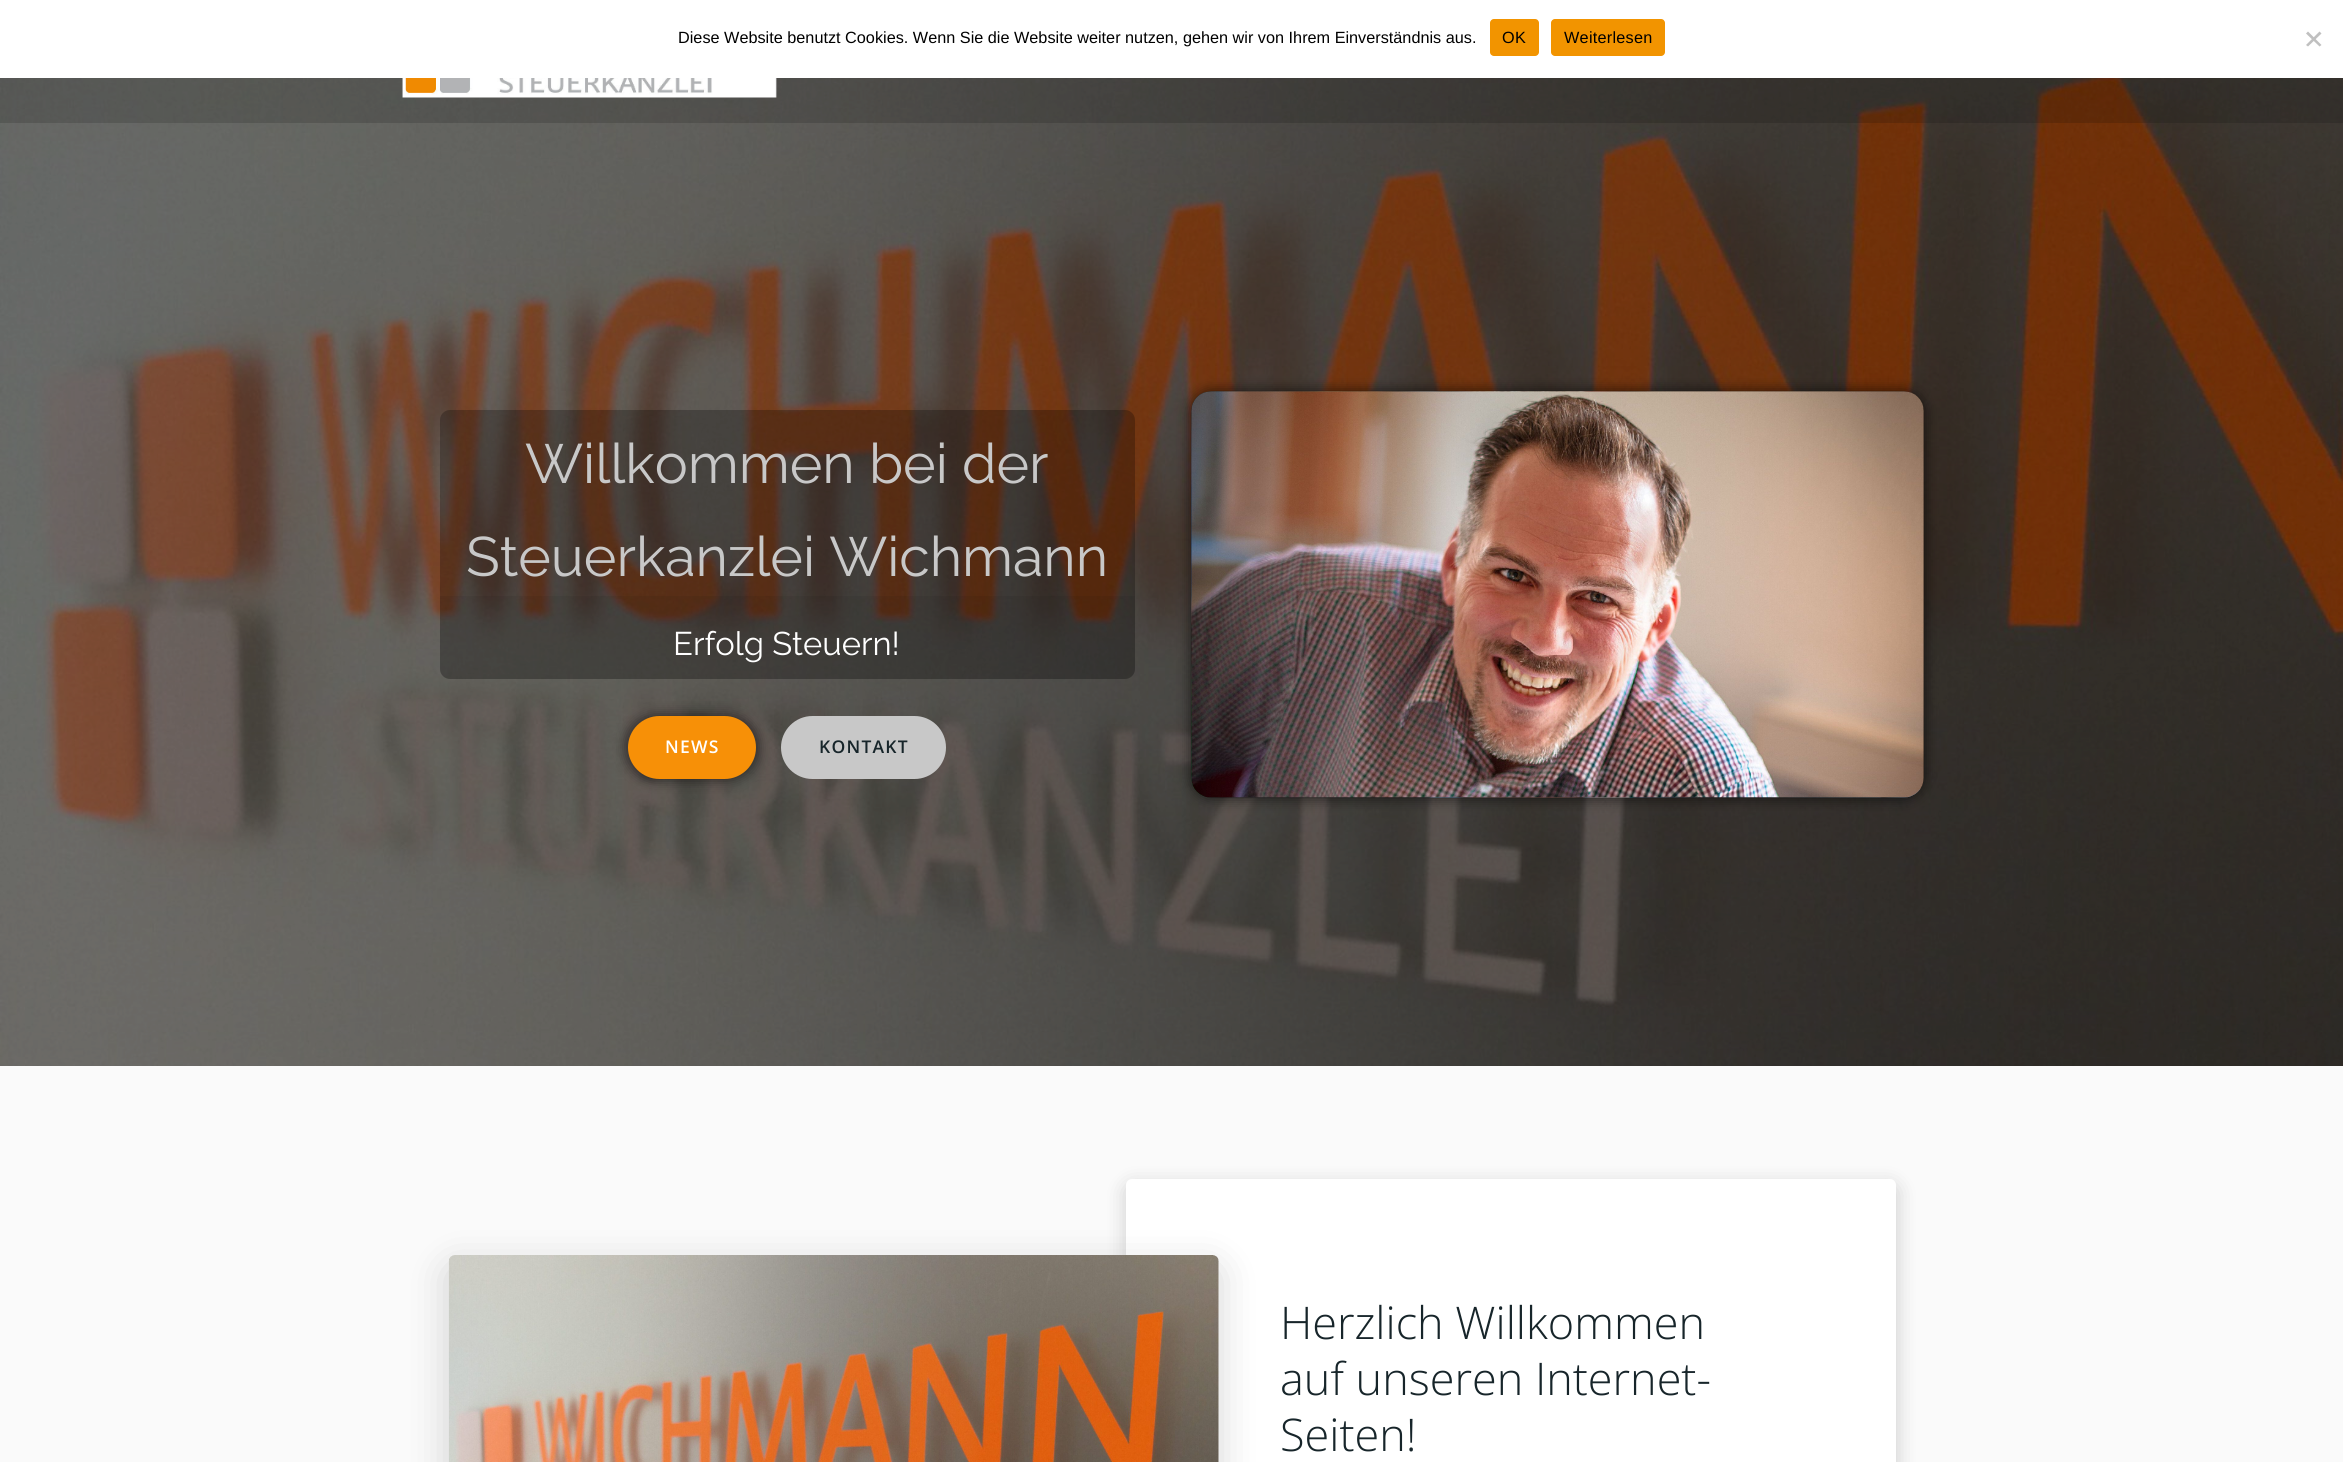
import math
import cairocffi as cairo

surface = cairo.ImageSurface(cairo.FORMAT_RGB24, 2343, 1462)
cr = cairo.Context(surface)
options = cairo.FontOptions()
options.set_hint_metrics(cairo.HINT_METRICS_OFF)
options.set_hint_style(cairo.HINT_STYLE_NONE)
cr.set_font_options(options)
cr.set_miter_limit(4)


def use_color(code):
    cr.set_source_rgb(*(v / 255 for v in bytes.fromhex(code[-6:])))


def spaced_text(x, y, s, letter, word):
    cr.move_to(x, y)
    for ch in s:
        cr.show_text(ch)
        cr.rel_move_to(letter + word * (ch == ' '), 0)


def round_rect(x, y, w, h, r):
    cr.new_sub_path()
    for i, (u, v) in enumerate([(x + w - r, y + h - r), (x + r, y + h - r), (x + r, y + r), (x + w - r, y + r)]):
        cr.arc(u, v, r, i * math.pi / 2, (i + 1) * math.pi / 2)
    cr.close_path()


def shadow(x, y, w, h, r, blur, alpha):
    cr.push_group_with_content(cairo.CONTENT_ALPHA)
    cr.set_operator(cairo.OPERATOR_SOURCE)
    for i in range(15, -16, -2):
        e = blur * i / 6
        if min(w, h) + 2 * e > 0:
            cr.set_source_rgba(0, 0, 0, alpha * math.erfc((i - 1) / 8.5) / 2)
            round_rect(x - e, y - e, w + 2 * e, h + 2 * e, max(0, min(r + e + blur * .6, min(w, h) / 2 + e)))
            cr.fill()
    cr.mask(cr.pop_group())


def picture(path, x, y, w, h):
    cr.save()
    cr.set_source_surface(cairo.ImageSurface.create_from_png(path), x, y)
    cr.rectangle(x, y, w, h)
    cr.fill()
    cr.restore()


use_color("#ffffff")
cr.paint()
cr.select_font_face("Liberation Sans")
cr.set_font_size(16.25)
use_color("#000000")
cr.move_to(678, 43)
cr.show_text("Diese Website benutzt Cookies. Wenn Sie die Website weiter nutzen, gehen wir von Ihrem Einverständnis aus.")
use_color("#f29400")
round_rect(1490, 19, 49, 37, 4)
cr.fill()
use_color("#000000")
spaced_text(1502, 43, "OK", 0.25, 0)
use_color("#f29400")
round_rect(1551, 19, 114, 37, 4)
cr.fill()
use_color("#000000")
spaced_text(1564, 43, "Weiterlesen", 0.25, 0)
use_color("#c0c0c0")
cr.new_path()
cr.move_to(2319.5, 31.5)
cr.line_to(2321.5, 33.5)
cr.line_to(2308, 46.5)
cr.line_to(2306, 45)
cr.close_path()
cr.fill()
cr.new_path()
cr.move_to(2306, 33.5)
cr.line_to(2308, 31.5)
cr.line_to(2321.5, 45)
cr.line_to(2319.5, 46.5)
cr.close_path()
cr.fill()
picture("img2.png", 0, 78, 2343, 988)
cr.set_source_rgba(0, 0, 0, 0.15)
cr.rectangle(0, 78, 2343, 45)
cr.fill()
picture("img1.png", 402, 78, 375, 20)
cr.set_source_rgba(0, 0, 0, 0.25)
cr.new_path()
cr.move_to(450, 410)
cr.line_to(1125, 410)
cr.curve_to(1130.5, 410, 1135, 414.5, 1135, 420)
cr.line_to(1135, 596)
cr.line_to(440, 596)
cr.line_to(440, 420)
cr.curve_to(440, 414.5, 444.5, 410, 450, 410)
cr.close_path()
cr.fill()
cr.select_font_face("Raleway")
cr.set_font_size(55.5)
use_color("#c8c8c8")
cr.move_to(525, 483)
cr.show_text("Willkommen bei der")
cr.move_to(466, 576)
cr.show_text("Steuerkanzlei Wichmann")
cr.set_source_rgba(0, 0, 0, 0.3)
cr.new_path()
cr.move_to(440, 596)
cr.line_to(1135, 596)
cr.line_to(1135, 669)
cr.curve_to(1135, 674.5, 1130.5, 679, 1125, 679)
cr.line_to(450, 679)
cr.curve_to(444.5, 679, 440, 674.5, 440, 669)
cr.close_path()
cr.fill()
cr.set_font_size(32.75)
use_color("#ffffff")
cr.move_to(673, 655)
cr.show_text("Erfolg Steuern!")
use_color("#000000")
shadow(625, 714, 134, 67, 33.5, 6, 0.5)
use_color("#f79007")
round_rect(628, 716, 128, 63, 31.5)
cr.fill()
cr.select_font_face("Open Sans SemiBold")
cr.set_font_size(17.5)
use_color("#ffffff")
spaced_text(665, 753, "NEWS", 1.25, 0)
use_color("#c8c8c8")
round_rect(781, 716, 165, 63, 31.5)
cr.fill()
use_color("#17252a")
spaced_text(819, 753, "KONTAKT", 1.25, 0)
use_color("#000000")
shadow(1189, 389, 737, 411, 23, 6, 0.5)
picture("img3.png", 1191, 391, 733, 407)
picture("img4.png", 1191, 391, 733, 407)
use_color("#fafafa")
cr.rectangle(0, 1066, 2343, 396)
cr.fill()
use_color("#000000")
shadow(1124, 1183, 775, 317, 9, 9.5, 0.15)
use_color("#ffffff")
round_rect(1126, 1179, 770, 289, 6)
cr.fill()
use_color("#000000")
shadow(446, 1265, 775, 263, 9, 19, 0.15)
picture("img5.png", 448, 1255, 771, 207)
cr.select_font_face("Open Sans Light")
cr.set_font_size(45)
use_color("#17252a")
cr.move_to(1280, 1339)
cr.show_text("Herzlich Willkommen")
cr.move_to(1280, 1395)
cr.show_text("auf unseren Internet-")
cr.move_to(1280, 1451)
cr.show_text("Seiten!")
surface.write_to_png("result.png")
